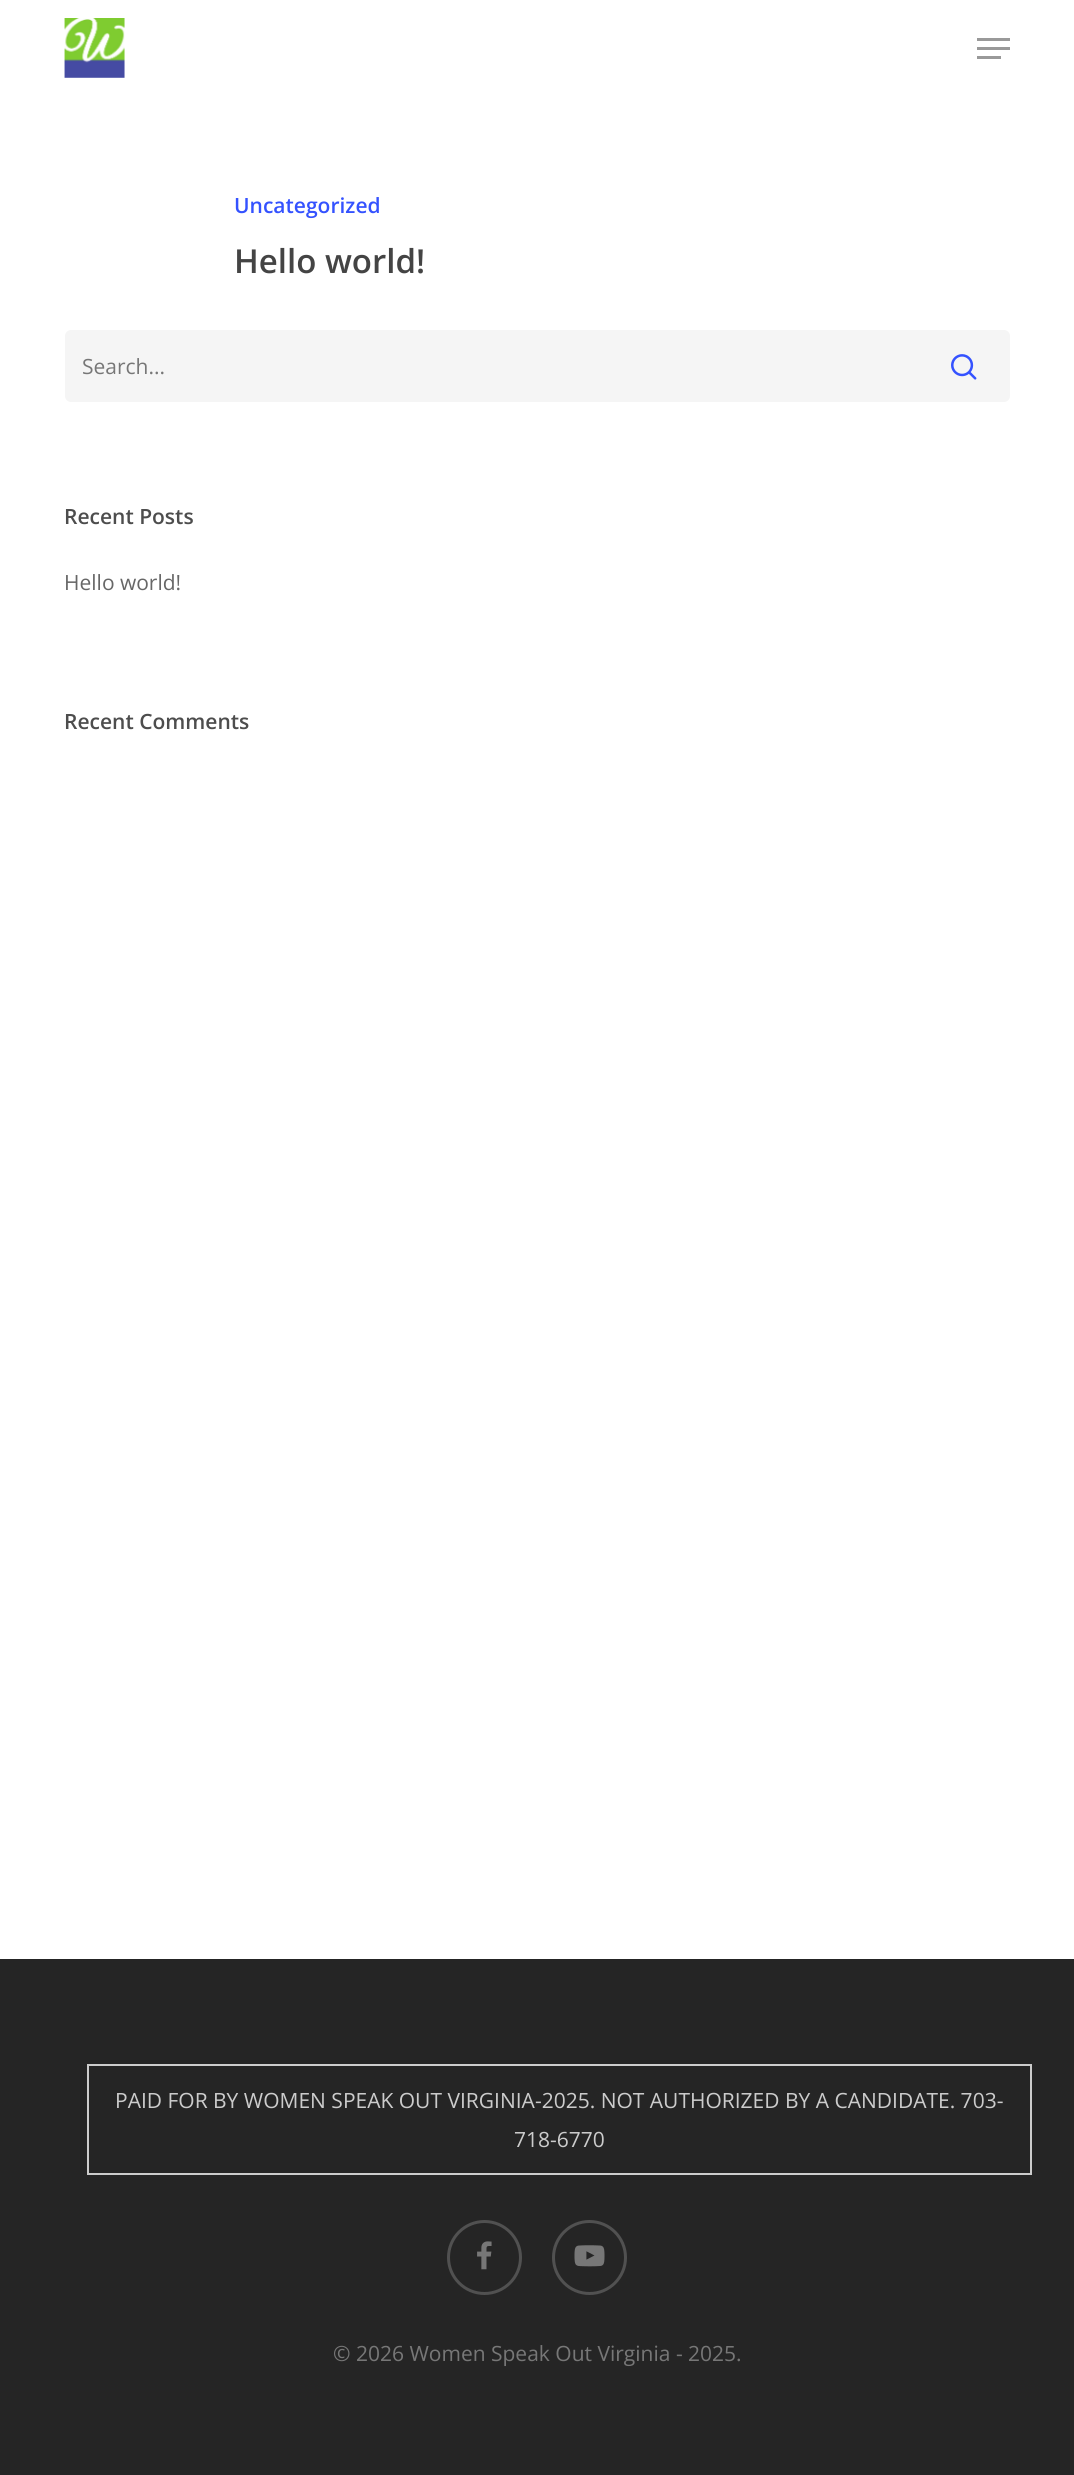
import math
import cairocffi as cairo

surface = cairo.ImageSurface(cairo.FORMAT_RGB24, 1074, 2475)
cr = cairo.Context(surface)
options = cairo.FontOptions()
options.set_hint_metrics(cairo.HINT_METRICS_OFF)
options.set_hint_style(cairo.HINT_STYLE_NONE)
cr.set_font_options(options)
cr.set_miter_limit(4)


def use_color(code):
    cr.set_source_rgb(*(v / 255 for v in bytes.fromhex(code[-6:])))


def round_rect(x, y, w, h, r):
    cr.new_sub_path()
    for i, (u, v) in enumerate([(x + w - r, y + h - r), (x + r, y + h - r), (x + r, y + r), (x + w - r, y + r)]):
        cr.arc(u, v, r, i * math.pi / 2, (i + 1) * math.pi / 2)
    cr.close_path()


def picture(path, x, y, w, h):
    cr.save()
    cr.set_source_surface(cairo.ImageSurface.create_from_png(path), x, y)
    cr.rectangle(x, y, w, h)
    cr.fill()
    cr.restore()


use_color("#ffffff")
cr.paint()
picture("img1.png", 64, 18, 61, 60)
use_color("#999999")
cr.rectangle(977, 38, 33, 3)
cr.fill()
cr.rectangle(977, 56, 24, 3)
cr.fill()
cr.rectangle(977, 47, 33, 3)
cr.fill()
cr.select_font_face("Open Sans SemiBold")
cr.set_font_size(21)
use_color("#3452ff")
cr.move_to(234, 213)
cr.show_text("Uncategorized")
cr.set_font_size(33)
use_color("#444444")
cr.move_to(234, 273)
cr.show_text("Hello world!")
use_color("#f5f5f5")
round_rect(65, 330, 945, 72, 6)
cr.fill()
cr.select_font_face("Open Sans")
cr.set_font_size(21)
use_color("#777777")
cr.move_to(82, 374)
cr.show_text("Search...")
picture("img2.png", 951, 354, 26, 26)
cr.select_font_face("Open Sans SemiBold")
use_color("#4d4d4d")
cr.move_to(64, 524)
cr.show_text("Recent Posts")
cr.select_font_face("Open Sans")
use_color("#676767")
cr.move_to(64, 590)
cr.show_text("Hello world!")
cr.select_font_face("Open Sans SemiBold")
use_color("#4d4d4d")
cr.move_to(64, 729)
cr.show_text("Recent Comments")
use_color("#252525")
cr.rectangle(0, 1959, 1074, 516)
cr.fill()
cr.rectangle(88, 2065, 943, 109)
use_color("#cccccc")
cr.stroke()
cr.select_font_face("Open Sans")
cr.move_to(115, 2108)
cr.show_text("PAID FOR BY WOMEN SPEAK OUT VIRGINIA-2025. NOT AUTHORIZED BY A CANDIDATE. 703-")
cr.move_to(514, 2147)
cr.show_text("718-6770")
picture("img3.png", 477, 2241, 15, 29)
cr.arc(484.5, 2257.5, 36, 0, 2 * math.pi)
use_color("#515151")
cr.set_line_width(3)
cr.stroke()
picture("img4.png", 574, 2245, 31, 22)
cr.arc(589.5, 2257.5, 36, 0, 2 * math.pi)
cr.stroke()
use_color("#777777")
cr.move_to(333, 2361)
cr.show_text("© 2026 Women Speak Out Virginia - 2025.")
surface.write_to_png("result.png")
